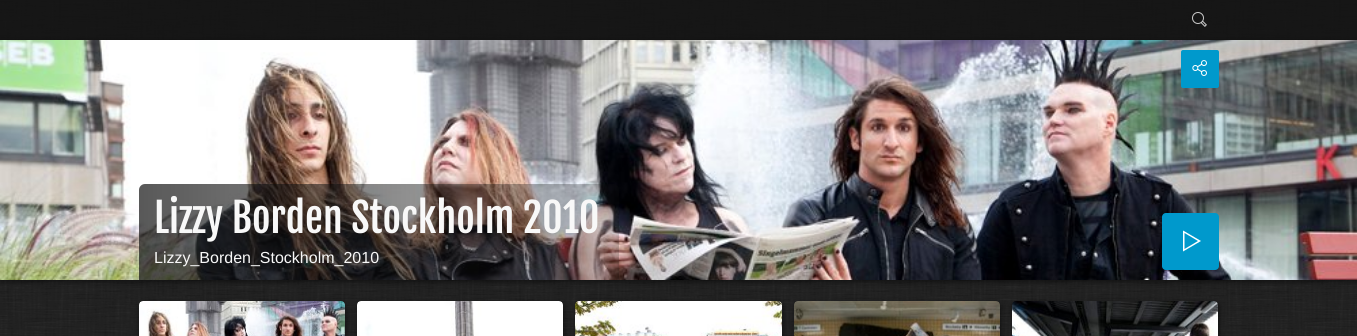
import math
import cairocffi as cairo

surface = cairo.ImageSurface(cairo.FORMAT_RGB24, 1357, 336)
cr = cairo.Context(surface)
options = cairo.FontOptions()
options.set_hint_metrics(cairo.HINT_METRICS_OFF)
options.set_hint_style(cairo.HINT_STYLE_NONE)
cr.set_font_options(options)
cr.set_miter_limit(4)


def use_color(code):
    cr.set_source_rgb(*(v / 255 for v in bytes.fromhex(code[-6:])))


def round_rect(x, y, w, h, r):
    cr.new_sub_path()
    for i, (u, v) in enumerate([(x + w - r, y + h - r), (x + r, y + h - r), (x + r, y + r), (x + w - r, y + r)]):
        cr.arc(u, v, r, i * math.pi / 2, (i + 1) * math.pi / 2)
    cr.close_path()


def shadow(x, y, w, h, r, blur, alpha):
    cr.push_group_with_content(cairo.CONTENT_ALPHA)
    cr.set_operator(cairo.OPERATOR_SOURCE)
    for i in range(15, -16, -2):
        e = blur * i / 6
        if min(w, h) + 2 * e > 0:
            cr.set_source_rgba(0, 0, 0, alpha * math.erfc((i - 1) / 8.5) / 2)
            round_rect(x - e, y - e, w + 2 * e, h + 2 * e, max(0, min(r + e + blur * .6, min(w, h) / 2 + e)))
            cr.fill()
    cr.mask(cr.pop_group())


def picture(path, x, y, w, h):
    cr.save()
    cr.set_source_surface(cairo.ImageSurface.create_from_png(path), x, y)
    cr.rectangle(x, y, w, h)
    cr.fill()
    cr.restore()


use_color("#222222")
cr.paint()
picture("img1.png", 0, 0, 1357, 336)
cr.set_source_rgba(0.078, 0.078, 0.078, 0.8)
cr.rectangle(0, 0, 1357, 40)
cr.fill()
picture("img2.png", 1192, 12, 15, 15)
use_color("#000000")
shadow(1, 42, 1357, 240, 0, 3, 0.5)
picture("img3.png", 0, 40, 1357, 240)
cr.select_font_face("Fjalla One")
cr.set_font_size(40)
use_color("#f8f8f8")
cr.move_to(154, 233)
cr.show_text("Lizzy Borden Stockholm 2010")
cr.select_font_face("Liberation Sans")
cr.set_font_size(16)
cr.move_to(154, 263)
cr.show_text("Lizzy_Borden_Stockholm_2010")
use_color("#0099cc")
round_rect(1181, 50, 38, 38, 2)
cr.fill()
picture("img4.png", 1192, 60, 15, 16)
round_rect(1162, 213, 57, 57, 4)
cr.fill()
use_color("#ffffff")
cr.new_path()
cr.move_to(1184.5, 233)
cr.line_to(1198, 241)
cr.line_to(1184.5, 249)
cr.close_path()
cr.move_to(1183, 230.5)
cr.line_to(1183, 251.5)
cr.line_to(1201, 241)
cr.close_path()
cr.fill()
use_color("#000000")
shadow(140, 303, 206, 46, 4, 3, 0.5)
picture("img5.png", 139, 301, 206, 35)
shadow(358, 303, 206, 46, 4, 3, 0.5)
picture("img6.png", 357, 301, 206, 35)
shadow(576, 303, 207, 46, 4, 3, 0.5)
picture("img7.png", 575, 301, 207, 35)
shadow(795, 303, 206, 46, 4, 3, 0.5)
picture("img8.png", 794, 301, 206, 35)
shadow(1013, 303, 206, 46, 4, 3, 0.5)
picture("img9.png", 1012, 301, 206, 35)
surface.write_to_png("result.png")
